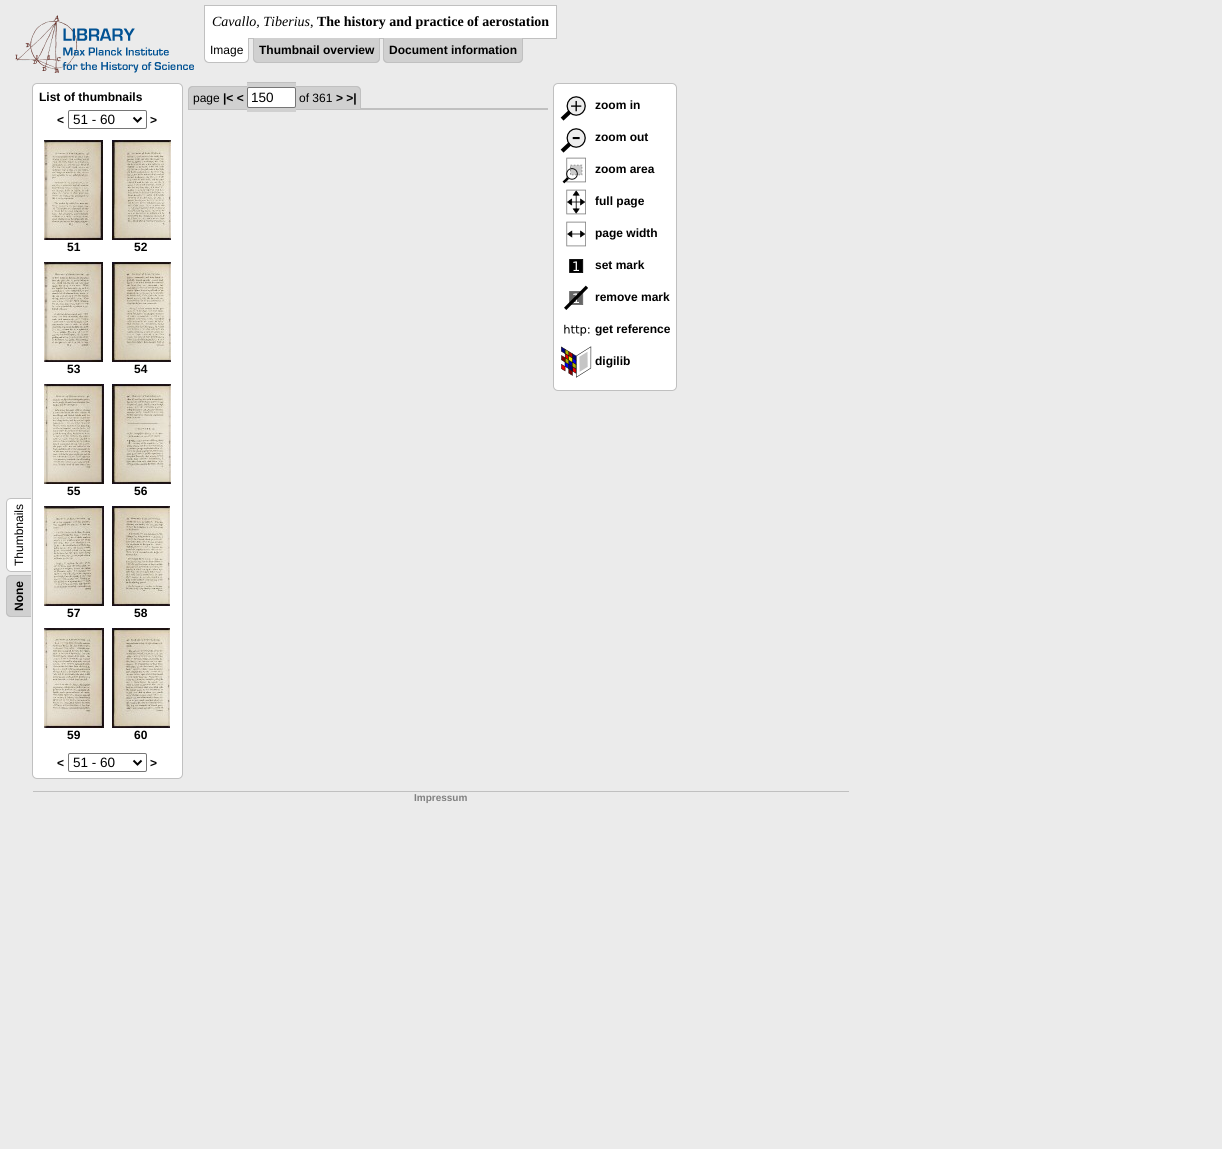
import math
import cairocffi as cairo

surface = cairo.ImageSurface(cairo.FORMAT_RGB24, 1222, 1149)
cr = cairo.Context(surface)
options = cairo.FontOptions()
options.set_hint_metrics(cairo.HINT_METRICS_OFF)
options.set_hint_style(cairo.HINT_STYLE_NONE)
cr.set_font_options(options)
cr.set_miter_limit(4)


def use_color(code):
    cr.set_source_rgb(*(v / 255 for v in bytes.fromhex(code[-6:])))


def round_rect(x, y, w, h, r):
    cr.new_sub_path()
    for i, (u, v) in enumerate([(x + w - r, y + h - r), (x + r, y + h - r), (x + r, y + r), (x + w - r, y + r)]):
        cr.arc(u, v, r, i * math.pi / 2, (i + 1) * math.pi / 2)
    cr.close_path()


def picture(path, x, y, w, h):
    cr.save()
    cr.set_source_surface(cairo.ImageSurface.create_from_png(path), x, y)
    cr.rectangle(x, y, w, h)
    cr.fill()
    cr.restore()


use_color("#ebebeb")
cr.paint()
picture("img1.png", 15, 15, 179, 58)
use_color("#ffffff")
cr.rectangle(204.5, 5.5, 352, 33)
cr.fill_preserve()
use_color("#c0c0c0")
cr.set_line_width(1)
cr.stroke()
cr.select_font_face("Liberation Serif", cairo.FONT_SLANT_ITALIC)
cr.set_font_size(14)
use_color("#000000")
cr.move_to(212, 26)
cr.show_text("Cavallo, Tiberius")
cr.select_font_face("Liberation Serif")
cr.move_to(310, 26)
cr.show_text(",")
cr.select_font_face("Liberation Serif", cairo.FONT_SLANT_NORMAL, cairo.FONT_WEIGHT_BOLD)
cr.move_to(317, 26)
cr.show_text("The history and practice of aerostation")
use_color("#ffffff")
cr.new_path()
cr.move_to(204, 38)
cr.line_to(249, 38)
cr.line_to(249, 58)
cr.curve_to(249, 61, 247, 63, 244, 63)
cr.line_to(209, 63)
cr.curve_to(206, 63, 204, 61, 204, 58)
cr.close_path()
cr.fill()
use_color("#c0c0c0")
cr.set_fill_rule(cairo.FILL_RULE_EVEN_ODD)
cr.new_path()
cr.move_to(204, 38)
cr.line_to(249, 38)
cr.line_to(249, 58)
cr.curve_to(249, 61, 247, 63, 244, 63)
cr.line_to(209, 63)
cr.curve_to(206, 63, 204, 61, 204, 58)
cr.close_path()
cr.move_to(205, 38)
cr.line_to(248, 38)
cr.line_to(248, 58)
cr.curve_to(248, 60, 246, 62, 244, 62)
cr.line_to(209, 62)
cr.curve_to(207, 62, 205, 60, 205, 58)
cr.close_path()
cr.fill()
cr.select_font_face("Liberation Sans")
cr.set_font_size(12)
use_color("#000000")
cr.move_to(210, 54)
cr.show_text("Image")
use_color("#d0d0d0")
cr.new_path()
cr.move_to(253, 38)
cr.line_to(380, 38)
cr.line_to(380, 58)
cr.curve_to(380, 61, 378, 63, 375, 63)
cr.line_to(258, 63)
cr.curve_to(255, 63, 253, 61, 253, 58)
cr.close_path()
cr.fill()
use_color("#c0c0c0")
cr.new_path()
cr.move_to(253, 38)
cr.line_to(380, 38)
cr.line_to(380, 58)
cr.curve_to(380, 61, 378, 63, 375, 63)
cr.line_to(258, 63)
cr.curve_to(255, 63, 253, 61, 253, 58)
cr.close_path()
cr.move_to(254, 38)
cr.line_to(379, 38)
cr.line_to(379, 58)
cr.curve_to(379, 60, 377, 62, 375, 62)
cr.line_to(258, 62)
cr.curve_to(256, 62, 254, 60, 254, 58)
cr.close_path()
cr.fill()
cr.select_font_face("Liberation Sans", cairo.FONT_SLANT_NORMAL, cairo.FONT_WEIGHT_BOLD)
use_color("#000000")
cr.move_to(259, 54)
cr.show_text("Thumbnail overview")
use_color("#d0d0d0")
cr.new_path()
cr.move_to(383, 38)
cr.line_to(523, 38)
cr.line_to(523, 58)
cr.curve_to(523, 61, 521, 63, 518, 63)
cr.line_to(388, 63)
cr.curve_to(385, 63, 383, 61, 383, 58)
cr.close_path()
cr.fill()
use_color("#c0c0c0")
cr.new_path()
cr.move_to(383, 38)
cr.line_to(523, 38)
cr.line_to(523, 58)
cr.curve_to(523, 61, 521, 63, 518, 63)
cr.line_to(388, 63)
cr.curve_to(385, 63, 383, 61, 383, 58)
cr.close_path()
cr.move_to(384, 38)
cr.line_to(522, 38)
cr.line_to(522, 58)
cr.curve_to(522, 60, 520, 62, 518, 62)
cr.line_to(388, 62)
cr.curve_to(386, 62, 384, 60, 384, 58)
cr.close_path()
cr.fill()
use_color("#000000")
cr.move_to(389, 54)
cr.show_text("Document information")
use_color("#ffffff")
cr.set_fill_rule(cairo.FILL_RULE_WINDING)
cr.new_path()
cr.move_to(6, 567)
cr.line_to(6, 503)
cr.curve_to(6, 500, 8, 498, 11, 498)
cr.line_to(31, 498)
cr.line_to(31, 572)
cr.line_to(11, 572)
cr.curve_to(8, 572, 6, 569, 6, 567)
cr.close_path()
cr.fill()
use_color("#c0c0c0")
cr.set_fill_rule(cairo.FILL_RULE_EVEN_ODD)
cr.new_path()
cr.move_to(6, 567)
cr.line_to(6, 503)
cr.curve_to(6, 500, 8, 498, 11, 498)
cr.line_to(31, 498)
cr.line_to(31, 572)
cr.line_to(11, 572)
cr.curve_to(8, 572, 6, 569, 6, 567)
cr.close_path()
cr.move_to(7, 567)
cr.line_to(7, 503)
cr.curve_to(7, 500, 9, 499, 11, 499)
cr.line_to(31, 499)
cr.line_to(31, 571)
cr.line_to(11, 571)
cr.curve_to(9, 571, 7, 569, 7, 567)
cr.close_path()
cr.fill()
cr.select_font_face("Liberation Sans")
use_color("#000000")
cr.save()
cr.translate(23, 566)
cr.rotate(-90 * math.pi / 180)
cr.move_to(0, 0)
cr.show_text("Thumbnails")
cr.restore()
use_color("#d0d0d0")
cr.set_fill_rule(cairo.FILL_RULE_WINDING)
cr.new_path()
cr.move_to(6, 612)
cr.line_to(6, 580)
cr.curve_to(6, 577, 8, 575, 11, 575)
cr.line_to(31, 575)
cr.line_to(31, 617)
cr.line_to(11, 617)
cr.curve_to(8, 617, 6, 615, 6, 612)
cr.close_path()
cr.fill()
use_color("#c0c0c0")
cr.set_fill_rule(cairo.FILL_RULE_EVEN_ODD)
cr.new_path()
cr.move_to(6, 612)
cr.line_to(6, 580)
cr.curve_to(6, 577, 8, 575, 11, 575)
cr.line_to(31, 575)
cr.line_to(31, 617)
cr.line_to(11, 617)
cr.curve_to(8, 617, 6, 615, 6, 612)
cr.close_path()
cr.move_to(7, 612)
cr.line_to(7, 580)
cr.curve_to(7, 578, 9, 576, 11, 576)
cr.line_to(31, 576)
cr.line_to(31, 616)
cr.line_to(11, 616)
cr.curve_to(9, 616, 7, 614, 7, 612)
cr.close_path()
cr.fill()
cr.select_font_face("Liberation Sans", cairo.FONT_SLANT_NORMAL, cairo.FONT_WEIGHT_BOLD)
use_color("#000000")
cr.save()
cr.translate(23, 611)
cr.rotate(-90 * math.pi / 180)
cr.move_to(0, 0)
cr.show_text("None")
cr.restore()
use_color("#ffffff")
round_rect(32.5, 83.5, 150, 695, 4.5)
cr.fill_preserve()
use_color("#c0c0c0")
cr.stroke()
use_color("#000000")
cr.move_to(39, 101)
cr.show_text("List of thumbnails")
cr.move_to(57, 124)
cr.show_text("<")
round_rect(68.5, 110.5, 78, 18, 1.5)
use_color("#767676")
cr.stroke()
cr.new_path()
cr.move_to(133.5, 117.5)
cr.line_to(137.5, 121.5)
cr.line_to(141.5, 117.5)
use_color("#000000")
cr.set_line_width(2)
cr.stroke()
cr.select_font_face("Liberation Sans")
cr.set_font_size(13.5)
cr.move_to(73, 124)
cr.show_text("51 - 60")
cr.select_font_face("Liberation Sans", cairo.FONT_SLANT_NORMAL, cairo.FONT_WEIGHT_BOLD)
cr.set_font_size(12)
cr.move_to(150, 124)
cr.show_text(">")
picture("img2.png", 44, 140, 59, 100)
cr.move_to(67, 251)
cr.show_text("51")
picture("img3.png", 112, 140, 59, 100)
cr.move_to(134, 251)
cr.show_text("52")
picture("img4.png", 44, 262, 59, 100)
cr.move_to(67, 373)
cr.show_text("53")
picture("img5.png", 112, 262, 59, 100)
cr.move_to(134, 373)
cr.show_text("54")
picture("img6.png", 44, 384, 60, 100)
cr.move_to(67, 495)
cr.show_text("55")
picture("img7.png", 112, 384, 59, 100)
cr.move_to(134, 495)
cr.show_text("56")
picture("img8.png", 44, 506, 60, 100)
cr.move_to(67, 617)
cr.show_text("57")
picture("img9.png", 112, 506, 58, 100)
cr.move_to(134, 617)
cr.show_text("58")
picture("img10.png", 44, 628, 60, 100)
cr.move_to(67, 739)
cr.show_text("59")
picture("img11.png", 112, 628, 58, 100)
cr.move_to(134, 739)
cr.show_text("60")
cr.move_to(57, 767)
cr.show_text("<")
round_rect(68.5, 753.5, 78, 18, 1.5)
use_color("#767676")
cr.set_line_width(1)
cr.stroke()
cr.new_path()
cr.move_to(133.5, 760.5)
cr.line_to(137.5, 764.5)
cr.line_to(141.5, 760.5)
use_color("#000000")
cr.set_line_width(2)
cr.stroke()
cr.select_font_face("Liberation Sans")
cr.set_font_size(13.5)
cr.move_to(73, 767)
cr.show_text("51 - 60")
cr.select_font_face("Liberation Sans", cairo.FONT_SLANT_NORMAL, cairo.FONT_WEIGHT_BOLD)
cr.set_font_size(12)
cr.move_to(150, 767)
cr.show_text(">")
use_color("#c0c0c0")
cr.rectangle(188, 108, 360, 2)
cr.fill()
use_color("#d0d0d0")
cr.new_path()
cr.move_to(193, 86)
cr.line_to(223, 86)
cr.line_to(223, 109)
cr.line_to(188, 109)
cr.line_to(188, 91)
cr.curve_to(188, 88, 190, 86, 193, 86)
cr.close_path()
cr.fill()
use_color("#c0c0c0")
cr.new_path()
cr.move_to(193, 86)
cr.line_to(223, 86)
cr.line_to(223, 109)
cr.line_to(188, 109)
cr.line_to(188, 91)
cr.curve_to(188, 88, 190, 86, 193, 86)
cr.close_path()
cr.move_to(193, 87)
cr.line_to(223, 87)
cr.line_to(223, 109)
cr.line_to(189, 109)
cr.line_to(189, 91)
cr.curve_to(189, 89, 191, 87, 193, 87)
cr.close_path()
cr.fill()
use_color("#d0d0d0")
cr.rectangle(223, 87, 10, 22)
cr.fill()
use_color("#c0c0c0")
cr.rectangle(223, 86, 10, 1)
cr.fill()
use_color("#d0d0d0")
cr.rectangle(233, 86, 14, 23)
cr.fill()
use_color("#c0c0c0")
cr.rectangle(233, 86, 14, 1)
cr.fill()
use_color("#d0d0d0")
cr.rectangle(247, 83, 49, 29)
cr.fill()
use_color("#c0c0c0")
cr.rectangle(247, 82, 49, 1)
cr.fill()
use_color("#d0d0d0")
cr.rectangle(296, 86, 3, 23)
cr.fill()
use_color("#c0c0c0")
cr.rectangle(296, 86, 40, 1)
cr.fill()
use_color("#d0d0d0")
cr.rectangle(299, 87, 37, 22)
cr.fill()
cr.rectangle(336, 86, 10, 23)
cr.fill()
use_color("#c0c0c0")
cr.rectangle(336, 86, 10, 1)
cr.fill()
use_color("#d0d0d0")
cr.new_path()
cr.move_to(346, 86)
cr.line_to(356, 86)
cr.curve_to(359, 86, 361, 88, 361, 91)
cr.line_to(361, 109)
cr.line_to(346, 109)
cr.close_path()
cr.fill()
use_color("#c0c0c0")
cr.new_path()
cr.move_to(346, 86)
cr.line_to(356, 86)
cr.curve_to(359, 86, 361, 88, 361, 91)
cr.line_to(361, 109)
cr.line_to(346, 109)
cr.close_path()
cr.move_to(346, 87)
cr.line_to(356, 87)
cr.curve_to(358, 87, 360, 89, 360, 91)
cr.line_to(360, 109)
cr.line_to(346, 109)
cr.close_path()
cr.fill()
cr.select_font_face("Liberation Sans")
use_color("#000000")
cr.move_to(193, 102)
cr.show_text("page")
cr.select_font_face("Liberation Sans", cairo.FONT_SLANT_NORMAL, cairo.FONT_WEIGHT_BOLD)
cr.move_to(223, 102)
cr.show_text("|< <")
use_color("#ffffff")
round_rect(247.5, 87.5, 48, 20, 1.5)
cr.fill_preserve()
use_color("#767676")
cr.set_line_width(1)
cr.stroke()
cr.select_font_face("Liberation Sans")
cr.set_font_size(13.5)
use_color("#000000")
cr.move_to(251, 102)
cr.show_text("150")
cr.set_font_size(12)
cr.move_to(299, 102)
cr.show_text("of 361")
cr.select_font_face("Liberation Sans", cairo.FONT_SLANT_NORMAL, cairo.FONT_WEIGHT_BOLD)
cr.move_to(336, 102)
cr.show_text("> >|")
use_color("#ffffff")
round_rect(553.5, 83.5, 123, 307, 4.5)
cr.fill_preserve()
use_color("#c0c0c0")
cr.stroke()
picture("img12.png", 560, 96, 26, 25)
use_color("#000000")
cr.move_to(595, 109)
cr.show_text("zoom in")
picture("img13.png", 560, 128, 26, 25)
cr.move_to(595, 141)
cr.show_text("zoom out")
picture("img14.png", 562, 157, 24, 27)
cr.move_to(595, 173)
cr.show_text("zoom area")
picture("img15.png", 566, 189, 20, 26)
cr.move_to(595, 205)
cr.show_text("full page")
picture("img16.png", 566, 221, 20, 26)
cr.move_to(595, 237)
cr.show_text("page width")
picture("img17.png", 569, 259, 15, 14)
cr.move_to(595, 269)
cr.show_text("set mark")
picture("img18.png", 564, 285, 24, 25)
cr.move_to(595, 301)
cr.show_text("remove mark")
picture("img19.png", 564, 324, 26, 12)
cr.move_to(595, 333)
cr.show_text("get reference")
picture("img20.png", 561, 346, 31, 32)
cr.move_to(595, 365)
cr.show_text("digilib")
use_color("#c0c0c0")
cr.rectangle(33, 791, 816, 1)
cr.fill()
cr.set_font_size(10)
use_color("#808080")
cr.move_to(414, 801)
cr.show_text("Impressum")
surface.write_to_png("result.png")
